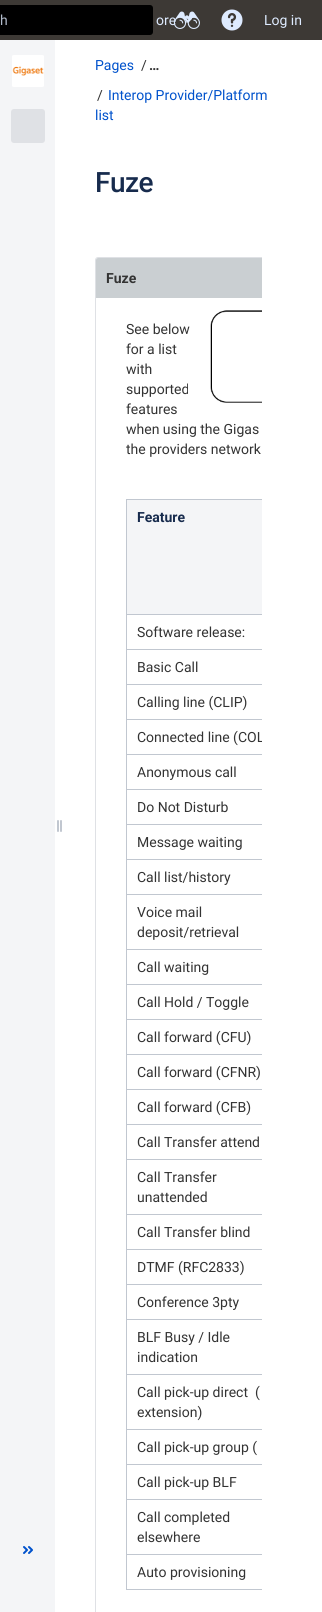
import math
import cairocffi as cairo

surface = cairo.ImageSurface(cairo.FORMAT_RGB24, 322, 1612)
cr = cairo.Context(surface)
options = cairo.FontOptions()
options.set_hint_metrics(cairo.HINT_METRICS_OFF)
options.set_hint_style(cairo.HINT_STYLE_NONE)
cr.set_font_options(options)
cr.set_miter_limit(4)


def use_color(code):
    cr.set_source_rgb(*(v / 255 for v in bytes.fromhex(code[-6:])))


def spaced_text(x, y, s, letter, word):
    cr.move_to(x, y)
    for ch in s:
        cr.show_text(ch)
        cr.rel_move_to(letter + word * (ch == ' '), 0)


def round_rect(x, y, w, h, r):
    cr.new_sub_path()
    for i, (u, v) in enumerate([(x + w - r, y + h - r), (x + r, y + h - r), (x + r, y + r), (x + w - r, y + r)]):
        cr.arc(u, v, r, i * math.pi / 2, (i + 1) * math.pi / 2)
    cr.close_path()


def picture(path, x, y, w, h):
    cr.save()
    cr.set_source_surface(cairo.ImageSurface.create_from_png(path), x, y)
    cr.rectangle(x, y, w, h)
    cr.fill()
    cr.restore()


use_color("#f4f5f7")
cr.paint()
use_color("#3d3935")
cr.rectangle(0, 0, 322, 40)
cr.fill()
use_color("#000000")
round_rect(-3, 5, 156, 30, 3)
cr.fill()
cr.select_font_face("Roboto")
cr.set_font_size(14)
use_color("#b2bccc")
cr.move_to(0, 25)
cr.show_text("h")
use_color("#deebff")
cr.move_to(156, 25)
cr.show_text("ore")
picture("img3.png", 185, 18, 7, 5)
picture("img1.png", 173, 11, 27, 18)
picture("img2.png", 221, 9, 22, 22)
cr.move_to(264, 25)
cr.show_text("Log in")
cr.save()
round_rect(11, 55, 34, 32, 3)
cr.clip()
use_color("#ffffff")
cr.rectangle(12, 55, 32, 32)
cr.fill()
cr.restore()
picture("img4.png", 12, 66, 32, 10)
use_color("#dfe1e5")
round_rect(11, 109, 34, 34, 3)
cr.fill()
use_color("#ffffff")
cr.rectangle(55, 40, 267, 1572)
cr.fill()
picture("img5.png", 57, 820, 5, 12)
picture("img6.png", 23, 1546, 10, 8)
use_color("#0052cc")
cr.move_to(95, 70)
cr.show_text("Pages")
use_color("#333333")
cr.move_to(141, 70)
cr.show_text("/")
cr.select_font_face("Roboto", cairo.FONT_SLANT_NORMAL, cairo.FONT_WEIGHT_BOLD)
cr.move_to(149, 70)
cr.show_text("…")
cr.select_font_face("Roboto")
cr.move_to(97, 100)
cr.show_text("/")
use_color("#0052cc")
cr.move_to(108, 100)
cr.show_text("Interop Provider/Platform")
cr.move_to(95, 120)
cr.show_text("list")
cr.select_font_face("Roboto Medium")
cr.set_font_size(28)
use_color("#172b4d")
spaced_text(95, 192, "Fuze", -0.5, 0)
cr.save()
cr.rectangle(95, 237, 167, 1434)
cr.clip()
round_rect(95.5, 257.5, 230, 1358, 2.5)
use_color("#dfe1e5")
cr.set_line_width(1)
cr.stroke()
cr.restore()
use_color("#cacfd2")
cr.new_path()
cr.move_to(98, 258)
cr.line_to(262, 258)
cr.line_to(262, 299)
cr.line_to(96, 299)
cr.line_to(96, 260)
cr.curve_to(96, 259, 97, 258, 98, 258)
cr.close_path()
cr.fill()
use_color("#ffffff")
cr.rectangle(96, 298, 166, 1)
cr.fill()
cr.select_font_face("Roboto", cairo.FONT_SLANT_NORMAL, cairo.FONT_WEIGHT_BOLD)
cr.set_font_size(14)
use_color("#333333")
cr.move_to(106, 283)
cr.show_text("Fuze")
picture("img7.png", 210, 310, 52, 93)
cr.select_font_face("Roboto")
cr.move_to(126, 334)
cr.show_text("See below")
cr.move_to(126, 354)
cr.show_text("for a list")
cr.move_to(126, 374)
cr.show_text("with")
cr.move_to(126, 394)
cr.show_text("supported")
cr.move_to(126, 414)
cr.show_text("features")
cr.move_to(126, 434)
cr.show_text("when using the Gigas")
cr.move_to(126, 454)
cr.show_text("the providers network")
use_color("#f4f5f7")
cr.rectangle(127, 500, 135, 114)
cr.fill()
use_color("#c1c7d0")
cr.rectangle(126, 499, 136, 1)
cr.fill()
cr.rectangle(126, 614, 136, 1)
cr.fill()
cr.rectangle(126, 649, 136, 1)
cr.fill()
cr.rectangle(126, 684, 136, 1)
cr.fill()
cr.rectangle(126, 719, 136, 1)
cr.fill()
cr.rectangle(126, 754, 136, 1)
cr.fill()
cr.rectangle(126, 789, 136, 1)
cr.fill()
cr.rectangle(126, 824, 136, 1)
cr.fill()
cr.rectangle(126, 859, 136, 1)
cr.fill()
cr.rectangle(126, 894, 136, 1)
cr.fill()
cr.rectangle(126, 949, 136, 1)
cr.fill()
cr.rectangle(126, 984, 136, 1)
cr.fill()
cr.rectangle(126, 1019, 136, 1)
cr.fill()
cr.rectangle(126, 1054, 136, 1)
cr.fill()
cr.rectangle(126, 1089, 136, 1)
cr.fill()
cr.rectangle(126, 1124, 136, 1)
cr.fill()
cr.rectangle(126, 1159, 136, 1)
cr.fill()
cr.rectangle(126, 1214, 136, 1)
cr.fill()
cr.rectangle(126, 1249, 136, 1)
cr.fill()
cr.rectangle(126, 1284, 136, 1)
cr.fill()
cr.rectangle(126, 1319, 136, 1)
cr.fill()
cr.rectangle(126, 1374, 136, 1)
cr.fill()
cr.rectangle(126, 1429, 136, 1)
cr.fill()
cr.rectangle(126, 1464, 136, 1)
cr.fill()
cr.rectangle(126, 1499, 136, 1)
cr.fill()
cr.rectangle(126, 1554, 136, 1)
cr.fill()
cr.rectangle(126, 1589, 136, 1)
cr.fill()
cr.rectangle(126, 1554, 1, 36)
cr.fill()
cr.rectangle(126, 1499, 1, 56)
cr.fill()
cr.rectangle(126, 1464, 1, 36)
cr.fill()
cr.rectangle(126, 1429, 1, 36)
cr.fill()
cr.rectangle(126, 1374, 1, 56)
cr.fill()
cr.rectangle(126, 1319, 1, 56)
cr.fill()
cr.rectangle(126, 1284, 1, 36)
cr.fill()
cr.rectangle(126, 1249, 1, 36)
cr.fill()
cr.rectangle(126, 1214, 1, 36)
cr.fill()
cr.rectangle(126, 1159, 1, 56)
cr.fill()
cr.rectangle(126, 1124, 1, 36)
cr.fill()
cr.rectangle(126, 1089, 1, 36)
cr.fill()
cr.rectangle(126, 1054, 1, 36)
cr.fill()
cr.rectangle(126, 1019, 1, 36)
cr.fill()
cr.rectangle(126, 984, 1, 36)
cr.fill()
cr.rectangle(126, 949, 1, 36)
cr.fill()
cr.rectangle(126, 894, 1, 56)
cr.fill()
cr.rectangle(126, 859, 1, 36)
cr.fill()
cr.rectangle(126, 824, 1, 36)
cr.fill()
cr.rectangle(126, 789, 1, 36)
cr.fill()
cr.rectangle(126, 754, 1, 36)
cr.fill()
cr.rectangle(126, 719, 1, 36)
cr.fill()
cr.rectangle(126, 684, 1, 36)
cr.fill()
cr.rectangle(126, 649, 1, 36)
cr.fill()
cr.rectangle(126, 614, 1, 36)
cr.fill()
cr.rectangle(126, 499, 1, 116)
cr.fill()
cr.select_font_face("Roboto", cairo.FONT_SLANT_NORMAL, cairo.FONT_WEIGHT_BOLD)
use_color("#172b4d")
cr.move_to(137, 522)
cr.show_text("Feature")
cr.select_font_face("Roboto")
use_color("#333333")
cr.move_to(137, 637)
cr.show_text("Software release:")
cr.move_to(137, 672)
cr.show_text("Basic Call")
cr.move_to(137, 707)
cr.show_text("Calling line (CLIP)")
cr.save()
cr.rectangle(126, 499, 136, 1091)
cr.clip()
cr.move_to(137, 742)
cr.show_text("Connected line (COL")
cr.restore()
cr.move_to(137, 777)
cr.show_text("Anonymous call")
cr.move_to(137, 812)
cr.show_text("Do Not Disturb")
cr.move_to(137, 847)
cr.show_text("Message waiting")
cr.move_to(137, 882)
cr.show_text("Call list/history")
cr.move_to(137, 917)
cr.show_text("Voice mail")
cr.move_to(137, 937)
cr.show_text("deposit/retrieval")
cr.move_to(137, 972)
cr.show_text("Call waiting")
cr.move_to(137, 1007)
cr.show_text("Call Hold / Toggle")
cr.move_to(137, 1042)
cr.show_text("Call forward (CFU)")
cr.move_to(137, 1077)
cr.show_text("Call forward (CFNR)")
cr.move_to(137, 1112)
cr.show_text("Call forward (CFB)")
cr.move_to(137, 1147)
cr.show_text("Call Transfer attend")
cr.move_to(137, 1182)
cr.show_text("Call Transfer")
cr.move_to(137, 1202)
cr.show_text("unattended")
cr.move_to(137, 1237)
cr.show_text("Call Transfer blind")
cr.move_to(137, 1272)
cr.show_text("DTMF (RFC2833)")
cr.move_to(137, 1307)
cr.show_text("Conference 3pty")
cr.move_to(137, 1342)
cr.show_text("BLF Busy / Idle")
cr.move_to(137, 1362)
cr.show_text("indication")
cr.move_to(137, 1397)
cr.show_text("Call pick-up direct  (")
cr.move_to(137, 1417)
cr.show_text("extension)")
cr.move_to(137, 1452)
cr.show_text("Call pick-up group (")
cr.move_to(137, 1487)
cr.show_text("Call pick-up BLF")
cr.move_to(137, 1522)
cr.show_text("Call completed")
cr.move_to(137, 1542)
cr.show_text("elsewhere")
cr.move_to(137, 1577)
cr.show_text("Auto provisioning")
surface.write_to_png("result.png")
